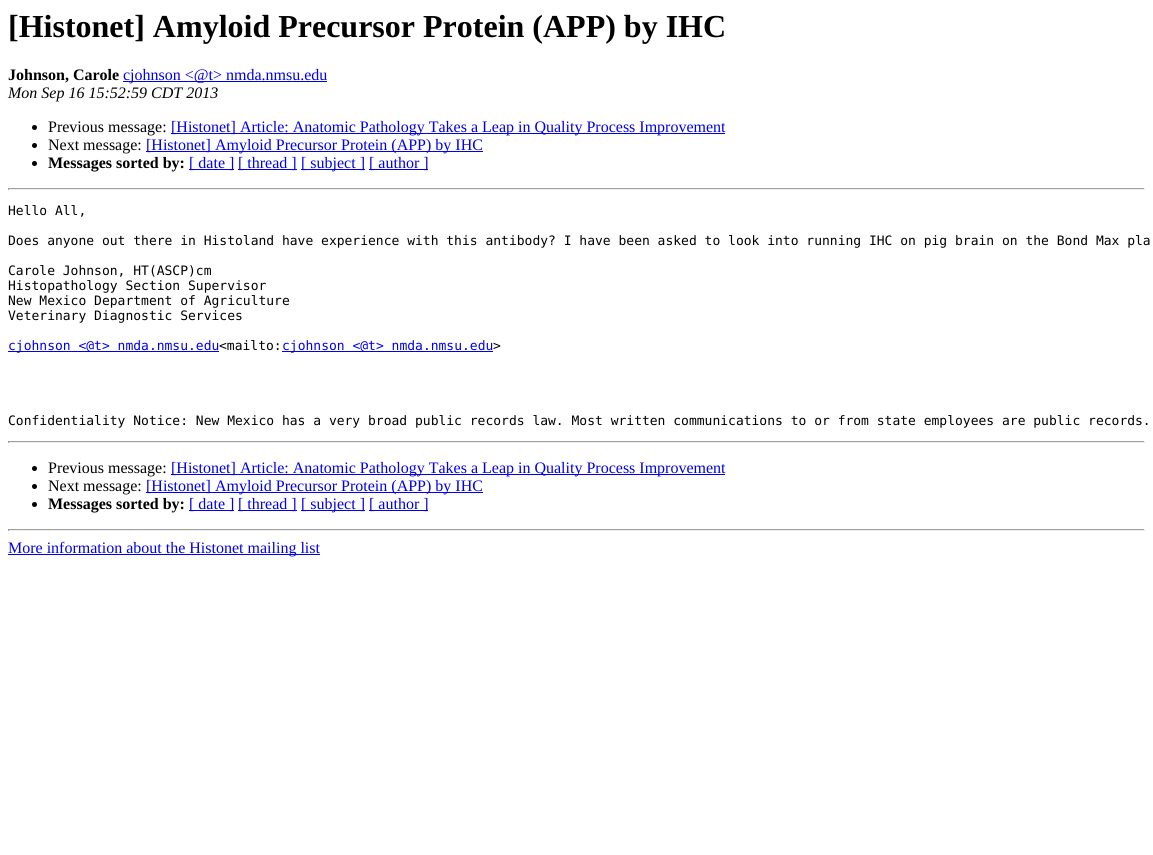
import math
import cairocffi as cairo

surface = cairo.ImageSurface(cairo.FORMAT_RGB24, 1153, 855)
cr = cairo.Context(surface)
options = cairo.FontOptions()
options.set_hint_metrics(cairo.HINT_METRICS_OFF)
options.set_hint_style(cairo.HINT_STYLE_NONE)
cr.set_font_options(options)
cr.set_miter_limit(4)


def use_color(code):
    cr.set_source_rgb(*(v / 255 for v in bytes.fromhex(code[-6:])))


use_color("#ffffff")
cr.paint()
cr.select_font_face("Liberation Serif", cairo.FONT_SLANT_NORMAL, cairo.FONT_WEIGHT_BOLD)
cr.set_font_size(32)
use_color("#000000")
cr.move_to(8, 37)
cr.show_text("[Histonet] Amyloid Precursor Protein (APP) by IHC")
cr.set_font_size(16)
cr.move_to(8, 80)
cr.show_text("Johnson, Carole")
use_color("#0000ee")
cr.rectangle(123, 81, 204, 1)
cr.fill()
cr.select_font_face("Liberation Serif")
cr.move_to(123, 80)
cr.show_text("cjohnson <@t> nmda.nmsu.edu")
cr.select_font_face("Liberation Serif", cairo.FONT_SLANT_ITALIC)
use_color("#000000")
cr.move_to(8, 98)
cr.show_text("Mon Sep 16 15:52:59 CDT 2013")
cr.new_path()
cr.arc(34.5, 127.5, 2.5, 0, 2 * math.pi)
cr.fill()
cr.select_font_face("Liberation Serif")
cr.move_to(48, 132)
cr.show_text("Previous message:")
use_color("#0000ee")
cr.rectangle(171, 133, 554, 1)
cr.fill()
cr.move_to(171, 132)
cr.show_text("[Histonet] Article: Anatomic Pathology Takes a Leap in Quality Process Improvement")
use_color("#000000")
cr.new_path()
cr.arc(34.5, 145.5, 2.5, 0, 2 * math.pi)
cr.fill()
cr.move_to(48, 150)
cr.show_text("Next message:")
use_color("#0000ee")
cr.rectangle(146, 151, 337, 1)
cr.fill()
cr.move_to(146, 150)
cr.show_text("[Histonet] Amyloid Precursor Protein (APP) by IHC")
use_color("#000000")
cr.new_path()
cr.arc(34.5, 163.5, 2.5, 0, 2 * math.pi)
cr.fill()
cr.select_font_face("Liberation Serif", cairo.FONT_SLANT_NORMAL, cairo.FONT_WEIGHT_BOLD)
cr.move_to(48, 168)
cr.show_text("Messages sorted by:")
use_color("#0000ee")
cr.rectangle(189, 169, 45, 1)
cr.fill()
cr.select_font_face("Liberation Serif")
cr.move_to(189, 168)
cr.show_text("[ date ]")
cr.rectangle(238, 169, 59, 1)
cr.fill()
cr.move_to(238, 168)
cr.show_text("[ thread ]")
cr.rectangle(301, 169, 64, 1)
cr.fill()
cr.move_to(301, 168)
cr.show_text("[ subject ]")
cr.rectangle(369, 169, 59, 1)
cr.fill()
cr.move_to(369, 168)
cr.show_text("[ author ]")
use_color("#9f9f9f")
cr.rectangle(8, 188, 1137, 1)
cr.fill()
use_color("#eeeeee")
cr.rectangle(1144, 188, 1, 2)
cr.fill()
cr.rectangle(8, 189, 1137, 1)
cr.fill()
use_color("#9f9f9f")
cr.rectangle(8, 188, 1, 2)
cr.fill()
cr.select_font_face("DejaVu Sans Mono")
cr.set_font_size(13)
use_color("#000000")
cr.move_to(8, 215)
cr.show_text("Hello All,")
cr.move_to(8, 245)
cr.show_text("Does anyone out there in Histoland have experience with this antibody? I have been asked to look into running IHC on pig brain on the Bond Max pla")
cr.move_to(8, 275)
cr.show_text("Carole Johnson, HT(ASCP)cm")
cr.move_to(8, 290)
cr.show_text("Histopathology Section Supervisor")
cr.move_to(8, 305)
cr.show_text("New Mexico Department of Agriculture")
cr.move_to(8, 320)
cr.show_text("Veterinary Diagnostic Services")
use_color("#0000ee")
cr.rectangle(8, 351, 211, 1)
cr.fill()
cr.move_to(8, 350)
cr.show_text("cjohnson <@t> nmda.nmsu.edu")
use_color("#000000")
cr.move_to(219, 350)
cr.show_text("<mailto:")
use_color("#0000ee")
cr.rectangle(282, 351, 211, 1)
cr.fill()
cr.move_to(282, 350)
cr.show_text("cjohnson <@t> nmda.nmsu.edu")
use_color("#000000")
cr.move_to(493, 350)
cr.show_text(">")
cr.move_to(8, 425)
cr.show_text("Confidentiality Notice: New Mexico has a very broad public records law. Most written communications to or from state employees are public records.")
use_color("#9f9f9f")
cr.rectangle(8, 441, 1137, 1)
cr.fill()
use_color("#eeeeee")
cr.rectangle(1144, 441, 1, 2)
cr.fill()
cr.rectangle(8, 442, 1137, 1)
cr.fill()
use_color("#9f9f9f")
cr.rectangle(8, 441, 1, 2)
cr.fill()
use_color("#000000")
cr.arc(34.5, 468.5, 2.5, 0, 2 * math.pi)
cr.fill()
cr.select_font_face("Liberation Serif")
cr.set_font_size(16)
cr.move_to(48, 473)
cr.show_text("Previous message:")
use_color("#0000ee")
cr.rectangle(171, 474, 554, 1)
cr.fill()
cr.move_to(171, 473)
cr.show_text("[Histonet] Article: Anatomic Pathology Takes a Leap in Quality Process Improvement")
use_color("#000000")
cr.new_path()
cr.arc(34.5, 486.5, 2.5, 0, 2 * math.pi)
cr.fill()
cr.move_to(48, 491)
cr.show_text("Next message:")
use_color("#0000ee")
cr.rectangle(146, 492, 337, 1)
cr.fill()
cr.move_to(146, 491)
cr.show_text("[Histonet] Amyloid Precursor Protein (APP) by IHC")
use_color("#000000")
cr.new_path()
cr.arc(34.5, 504.5, 2.5, 0, 2 * math.pi)
cr.fill()
cr.select_font_face("Liberation Serif", cairo.FONT_SLANT_NORMAL, cairo.FONT_WEIGHT_BOLD)
cr.move_to(48, 509)
cr.show_text("Messages sorted by:")
use_color("#0000ee")
cr.rectangle(189, 510, 45, 1)
cr.fill()
cr.select_font_face("Liberation Serif")
cr.move_to(189, 509)
cr.show_text("[ date ]")
cr.rectangle(238, 510, 59, 1)
cr.fill()
cr.move_to(238, 509)
cr.show_text("[ thread ]")
cr.rectangle(301, 510, 64, 1)
cr.fill()
cr.move_to(301, 509)
cr.show_text("[ subject ]")
cr.rectangle(369, 510, 59, 1)
cr.fill()
cr.move_to(369, 509)
cr.show_text("[ author ]")
use_color("#9f9f9f")
cr.rectangle(8, 529, 1137, 1)
cr.fill()
use_color("#eeeeee")
cr.rectangle(1144, 529, 1, 2)
cr.fill()
cr.rectangle(8, 530, 1137, 1)
cr.fill()
use_color("#9f9f9f")
cr.rectangle(8, 529, 1, 2)
cr.fill()
use_color("#0000ee")
cr.rectangle(8, 554, 312, 1)
cr.fill()
cr.move_to(8, 553)
cr.show_text("More information about the Histonet mailing list")
surface.write_to_png("result.png")
